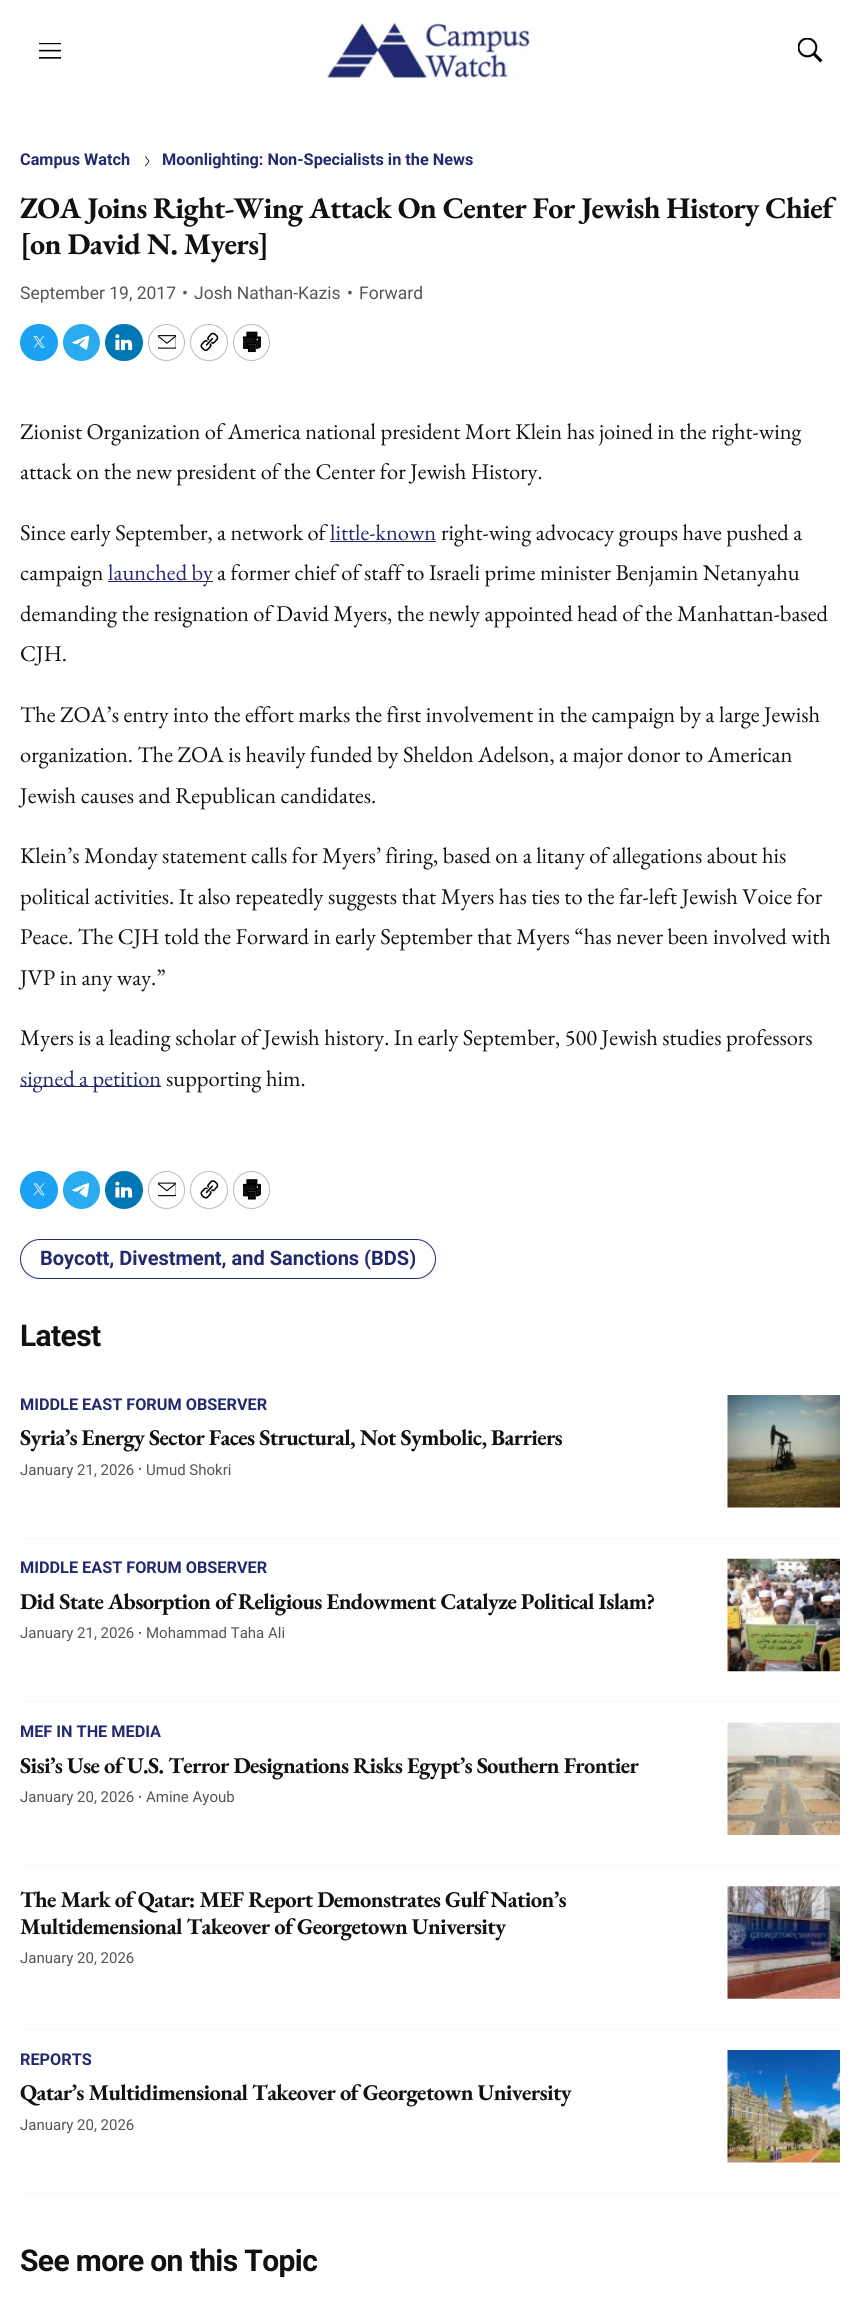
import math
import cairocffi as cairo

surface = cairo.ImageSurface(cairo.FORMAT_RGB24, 860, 2301)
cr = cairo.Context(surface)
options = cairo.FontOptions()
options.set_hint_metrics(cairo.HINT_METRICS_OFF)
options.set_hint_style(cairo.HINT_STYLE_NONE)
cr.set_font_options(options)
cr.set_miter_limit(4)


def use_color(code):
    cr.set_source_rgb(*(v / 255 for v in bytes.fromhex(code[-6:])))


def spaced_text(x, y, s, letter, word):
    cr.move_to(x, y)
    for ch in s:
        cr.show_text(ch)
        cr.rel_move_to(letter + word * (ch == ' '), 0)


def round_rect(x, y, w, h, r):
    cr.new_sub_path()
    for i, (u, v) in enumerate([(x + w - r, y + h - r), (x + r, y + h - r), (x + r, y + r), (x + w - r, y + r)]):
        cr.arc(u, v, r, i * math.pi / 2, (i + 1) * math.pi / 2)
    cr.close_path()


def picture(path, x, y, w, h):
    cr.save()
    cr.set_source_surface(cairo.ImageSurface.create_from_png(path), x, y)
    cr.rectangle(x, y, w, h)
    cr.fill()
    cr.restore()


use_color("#ffffff")
cr.paint()
picture("img1.png", 39, 43, 22, 16)
picture("img2.png", 327, 17, 203, 63)
picture("img3.png", 798, 38, 25, 25)
cr.select_font_face("Roboto", cairo.FONT_SLANT_NORMAL, cairo.FONT_WEIGHT_BOLD)
cr.set_font_size(16.25)
use_color("#23296e")
cr.move_to(20, 165)
cr.show_text("Campus Watch")
picture("img4.png", 145, 156, 5, 11)
cr.move_to(162, 165)
cr.show_text("Moonlighting: Non-Specialists in the News")
cr.select_font_face("EB Garamond", cairo.FONT_SLANT_NORMAL, cairo.FONT_WEIGHT_BOLD)
cr.set_font_size(30)
use_color("#111111")
spaced_text(20, 218, "ZOA Joins Right-Wing Attack On Center For Jewish History Chief", -0.62, 0)
spaced_text(20, 254, "[on David N. Myers]", -0.62, 0)
cr.select_font_face("Roboto")
cr.set_font_size(17.5)
use_color("#555555")
cr.move_to(20, 299)
cr.show_text("September 19, 2017")
cr.move_to(182, 299)
cr.show_text("•")
cr.move_to(194, 299)
cr.show_text("Josh Nathan-Kazis")
cr.move_to(347, 299)
cr.show_text("•")
cr.move_to(359, 299)
cr.show_text("Forward")
use_color("#1da1f2")
round_rect(20, 324, 38, 37, 18.5)
cr.fill()
picture("img5.png", 33, 336, 12, 12)
use_color("#2aabee")
cr.arc(81.5, 342.5, 18.5, 0, 2 * math.pi)
cr.fill()
picture("img6.png", 72, 335, 18, 15)
use_color("#0077b5")
round_rect(105, 324, 38, 37, 18.5)
cr.fill()
picture("img7.png", 115, 334, 18, 17)
cr.arc(166.5, 342.5, 18, 0, 2 * math.pi)
use_color("#bbbbbb")
cr.set_line_width(1)
cr.stroke()
picture("img8.png", 158, 335, 18, 14)
round_rect(190.5, 324.5, 37, 36, 18)
cr.stroke()
picture("img9.png", 200, 332, 19, 19)
cr.arc(251.5, 342.5, 18, 0, 2 * math.pi)
cr.stroke()
picture("img10.png", 243, 331, 18, 22)
cr.select_font_face("EB Garamond")
cr.set_font_size(22.5)
use_color("#111111")
cr.move_to(20, 439)
cr.show_text("Zionist Organization of America national president Mort Klein has joined in the right-wing")
cr.move_to(20, 479)
cr.show_text("attack on the new president of the Center for Jewish History.")
cr.move_to(20, 540)
cr.show_text("Since early September, a network of")
use_color("#23296e")
cr.move_to(330, 540)
cr.show_text("little-known")
cr.rectangle(330, 541, 106, 1)
cr.fill()
use_color("#111111")
cr.move_to(441, 540)
cr.show_text("right-wing advocacy groups have pushed a")
cr.move_to(20, 580)
cr.show_text("campaign")
use_color("#23296e")
cr.rectangle(108, 581, 105, 1)
cr.fill()
cr.move_to(108, 580)
cr.show_text("launched by")
use_color("#111111")
cr.move_to(217, 580)
cr.show_text("a former chief of staff to Israeli prime minister Benjamin Netanyahu")
cr.move_to(20, 621)
cr.show_text("demanding the resignation of David Myers, the newly appointed head of the Manhattan-based")
cr.move_to(20, 661)
cr.show_text("CJH.")
cr.move_to(20, 722)
cr.show_text("The ZOA’s entry into the effort marks the first involvement in the campaign by a large Jewish")
cr.move_to(20, 762)
cr.show_text("organization. The ZOA is heavily funded by Sheldon Adelson, a major donor to American")
cr.move_to(20, 803)
cr.show_text("Jewish causes and Republican candidates.")
cr.move_to(20, 863)
cr.show_text("Klein’s Monday statement calls for Myers’ firing, based on a litany of allegations about his")
cr.move_to(20, 904)
cr.show_text("political activities. It also repeatedly suggests that Myers has ties to the far-left Jewish Voice for")
cr.move_to(20, 944)
cr.show_text("Peace. The CJH told the Forward in early September that Myers “has never been involved with")
cr.move_to(20, 985)
cr.show_text("JVP in any way.”")
cr.move_to(20, 1045)
cr.show_text("Myers is a leading scholar of Jewish history. In early September, 500 Jewish studies professors")
use_color("#23296e")
cr.rectangle(20, 1086, 141, 1)
cr.fill()
cr.move_to(20, 1086)
cr.show_text("signed a petition")
use_color("#111111")
cr.move_to(166, 1086)
cr.show_text("supporting him.")
use_color("#1da1f2")
cr.new_path()
cr.arc(39, 1190, 19, 0, 2 * math.pi)
cr.fill()
picture("img11.png", 33, 1183, 12, 13)
use_color("#2aabee")
round_rect(63, 1171, 37, 38, 18.5)
cr.fill()
picture("img12.png", 72, 1183, 18, 15)
use_color("#0077b5")
cr.arc(124, 1190, 19, 0, 2 * math.pi)
cr.fill()
picture("img13.png", 115, 1181, 18, 17)
round_rect(148.5, 1171.5, 36, 37, 18)
use_color("#bbbbbb")
cr.stroke()
picture("img14.png", 158, 1182, 18, 15)
cr.arc(209, 1190, 18.5, 0, 2 * math.pi)
cr.stroke()
picture("img15.png", 200, 1180, 19, 19)
round_rect(233.5, 1171.5, 36, 37, 18)
cr.stroke()
picture("img16.png", 243, 1179, 18, 21)
round_rect(20.5, 1239.5, 415, 39, 19.5)
use_color("#23296e")
cr.stroke()
cr.select_font_face("Roboto", cairo.FONT_SLANT_NORMAL, cairo.FONT_WEIGHT_BOLD)
cr.set_font_size(20)
cr.move_to(40, 1265)
cr.show_text("Boycott, Divestment, and Sanctions (BDS)")
cr.set_font_size(30)
use_color("#111111")
spaced_text(20, 1346, "Latest", -0.62, 0)
use_color("#f7f7f7")
cr.rectangle(20, 1538, 820, 1)
cr.fill()
cr.set_font_size(16.25)
use_color("#23296e")
cr.move_to(20, 1410)
cr.show_text("MIDDLE EAST FORUM OBSERVER")
cr.select_font_face("EB Garamond", cairo.FONT_SLANT_NORMAL, cairo.FONT_WEIGHT_BOLD)
cr.set_font_size(22.5)
use_color("#111111")
spaced_text(20, 1445, "Syria’s Energy Sector Faces Structural, Not Symbolic, Barriers", -0.62, 0)
cr.select_font_face("Roboto")
cr.set_font_size(15)
use_color("#555555")
cr.move_to(20, 1475)
cr.show_text("January 21, 2026")
cr.select_font_face("EB Garamond")
cr.set_font_size(20)
cr.move_to(138, 1473)
cr.show_text("·")
cr.select_font_face("Roboto")
cr.set_font_size(15)
cr.move_to(146, 1475)
cr.show_text("Umud Shokri")
picture("img17.png", 727, 1395, 113, 113)
use_color("#f7f7f7")
cr.rectangle(20, 1701, 820, 1)
cr.fill()
cr.select_font_face("Roboto", cairo.FONT_SLANT_NORMAL, cairo.FONT_WEIGHT_BOLD)
cr.set_font_size(16.25)
use_color("#23296e")
cr.move_to(20, 1573)
cr.show_text("MIDDLE EAST FORUM OBSERVER")
cr.select_font_face("EB Garamond", cairo.FONT_SLANT_NORMAL, cairo.FONT_WEIGHT_BOLD)
cr.set_font_size(22.5)
use_color("#111111")
spaced_text(20, 1609, "Did State Absorption of Religious Endowment Catalyze Political Islam?", -0.62, 0)
cr.select_font_face("Roboto")
cr.set_font_size(15)
use_color("#555555")
cr.move_to(20, 1638)
cr.show_text("January 21, 2026")
cr.select_font_face("EB Garamond")
cr.set_font_size(20)
cr.move_to(138, 1637)
cr.show_text("·")
cr.select_font_face("Roboto")
cr.set_font_size(15)
cr.move_to(146, 1638)
cr.show_text("Mohammad Taha Ali")
picture("img18.png", 727, 1558, 113, 114)
use_color("#f7f7f7")
cr.rectangle(20, 1865, 820, 1)
cr.fill()
cr.select_font_face("Roboto", cairo.FONT_SLANT_NORMAL, cairo.FONT_WEIGHT_BOLD)
cr.set_font_size(16.25)
use_color("#23296e")
cr.move_to(20, 1737)
cr.show_text("MEF IN THE MEDIA")
cr.select_font_face("EB Garamond", cairo.FONT_SLANT_NORMAL, cairo.FONT_WEIGHT_BOLD)
cr.set_font_size(22.5)
use_color("#111111")
spaced_text(20, 1773, "Sisi’s Use of U.S. Terror Designations Risks Egypt’s Southern Frontier", -0.62, 0)
cr.select_font_face("Roboto")
cr.set_font_size(15)
use_color("#555555")
cr.move_to(20, 1802)
cr.show_text("January 20, 2026")
cr.select_font_face("EB Garamond")
cr.set_font_size(20)
cr.move_to(138, 1801)
cr.show_text("·")
cr.select_font_face("Roboto")
cr.set_font_size(15)
cr.move_to(146, 1802)
cr.show_text("Amine Ayoub")
picture("img19.png", 727, 1722, 113, 113)
use_color("#f7f7f7")
cr.rectangle(20, 2029, 820, 1)
cr.fill()
cr.select_font_face("EB Garamond", cairo.FONT_SLANT_NORMAL, cairo.FONT_WEIGHT_BOLD)
cr.set_font_size(22.5)
use_color("#111111")
spaced_text(20, 1907, "The Mark of Qatar: MEF Report Demonstrates Gulf Nation’s", -0.62, 0)
spaced_text(20, 1934, "Multidemensional Takeover of Georgetown University", -0.62, 0)
cr.select_font_face("Roboto")
cr.set_font_size(15)
use_color("#555555")
cr.move_to(20, 1963)
cr.show_text("January 20, 2026")
picture("img20.png", 727, 1886, 113, 113)
use_color("#f7f7f7")
cr.rectangle(20, 2193, 820, 1)
cr.fill()
cr.select_font_face("Roboto", cairo.FONT_SLANT_NORMAL, cairo.FONT_WEIGHT_BOLD)
cr.set_font_size(16.25)
use_color("#23296e")
cr.move_to(20, 2065)
cr.show_text("REPORTS")
cr.select_font_face("EB Garamond", cairo.FONT_SLANT_NORMAL, cairo.FONT_WEIGHT_BOLD)
cr.set_font_size(22.5)
use_color("#111111")
spaced_text(20, 2100, "Qatar’s Multidimensional Takeover of Georgetown University", -0.62, 0)
cr.select_font_face("Roboto")
cr.set_font_size(15)
use_color("#555555")
cr.move_to(20, 2130)
cr.show_text("January 20, 2026")
picture("img21.png", 727, 2050, 113, 113)
cr.select_font_face("Roboto", cairo.FONT_SLANT_NORMAL, cairo.FONT_WEIGHT_BOLD)
cr.set_font_size(30)
use_color("#111111")
spaced_text(20, 2271, "See more on this Topic", -0.62, 0)
surface.write_to_png("result.png")
